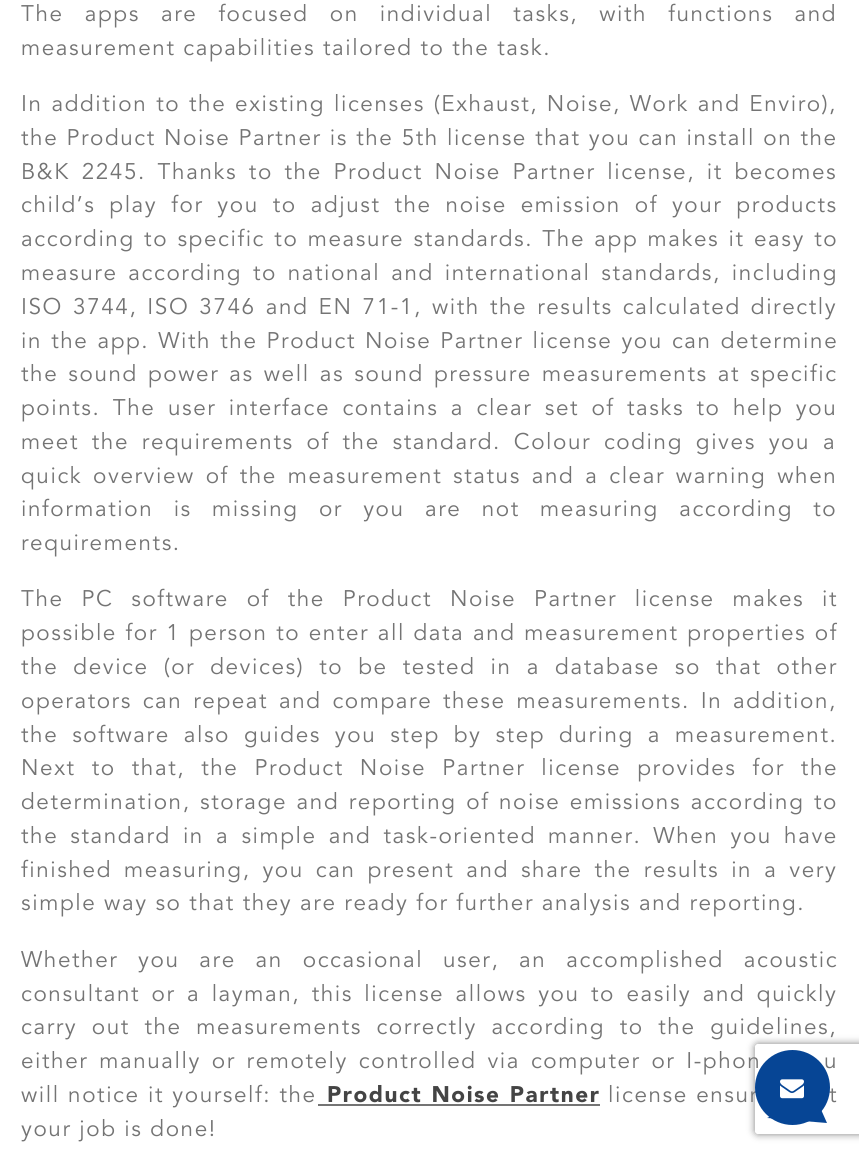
import math
import cairocffi as cairo

surface = cairo.ImageSurface(cairo.FORMAT_RGB24, 859, 1155)
cr = cairo.Context(surface)
options = cairo.FontOptions()
options.set_hint_metrics(cairo.HINT_METRICS_OFF)
options.set_hint_style(cairo.HINT_STYLE_NONE)
cr.set_font_options(options)
cr.set_miter_limit(4)


def use_color(code):
    cr.set_source_rgb(*(v / 255 for v in bytes.fromhex(code[-6:])))


def spaced_text(x, y, s, letter, word):
    cr.move_to(x, y)
    for ch in s:
        cr.show_text(ch)
        cr.rel_move_to(letter + word * (ch == ' '), 0)


def round_rect(x, y, w, h, r):
    cr.new_sub_path()
    for i, (u, v) in enumerate([(x + w - r, y + h - r), (x + r, y + h - r), (x + r, y + r), (x + w - r, y + r)]):
        cr.arc(u, v, r, i * math.pi / 2, (i + 1) * math.pi / 2)
    cr.close_path()


def shadow(x, y, w, h, r, blur, alpha):
    cr.push_group_with_content(cairo.CONTENT_ALPHA)
    cr.set_operator(cairo.OPERATOR_SOURCE)
    for i in range(15, -16, -2):
        e = blur * i / 6
        if min(w, h) + 2 * e > 0:
            cr.set_source_rgba(0, 0, 0, alpha * math.erfc((i - 1) / 8.5) / 2)
            round_rect(x - e, y - e, w + 2 * e, h + 2 * e, max(0, min(r + e + blur * .6, min(w, h) / 2 + e)))
            cr.fill()
    cr.mask(cr.pop_group())


def picture(path, x, y, w, h):
    cr.save()
    cr.set_source_surface(cairo.ImageSurface.create_from_png(path), x, y)
    cr.rectangle(x, y, w, h)
    cr.fill()
    cr.restore()


use_color("#ffffff")
cr.paint()
cr.select_font_face("Avenir")
cr.set_font_size(22.5)
use_color("#747474")
spaced_text(21, 21, "The apps are focused on individual tasks, with functions and", 1.58, 13.25)
spaced_text(21, 55, "measurement capabilities tailored to the task.", 1.58, 0)
spaced_text(21, 111, "In addition to the existing licenses (Exhaust, Noise, Work and Enviro),", 1.58, 1)
spaced_text(21, 145, "the Product Noise Partner is the 5th license that you can install on the", 1.58, 0.4)
spaced_text(21, 179, "B&K 2245. Thanks to the Product Noise Partner license, it becomes", 1.58, 3.9)
spaced_text(21, 212, "child’s play for you to adjust the noise emission of your products", 1.58, 6.1)
spaced_text(21, 246, "according to specific to measure standards. The app makes it easy to", 1.58, 1.5)
spaced_text(21, 280, "measure according to national and international standards, including", 1.58, 3)
spaced_text(21, 314, "ISO 3744, ISO 3746 and EN 71-1, with the results calculated directly", 1.58, 2.25)
spaced_text(21, 348, "in the app. With the Product Noise Partner license you can determine", 1.58, 1.25)
spaced_text(21, 381, "the sound power as well as sound pressure measurements at specific", 1.58, 2.25)
spaced_text(21, 415, "points. The user interface contains a clear set of tasks to help you", 1.58, 4.6)
spaced_text(21, 449, "meet the requirements of the standard. Colour coding gives you a", 1.58, 5)
spaced_text(21, 483, "quick overview of the measurement status and a clear warning when", 1.58, 3)
spaced_text(21, 516, "information is missing or you are not measuring according to", 1.58, 12.5)
spaced_text(21, 550, "requirements.", 1.58, 0)
spaced_text(21, 606, "The PC software of the Product Noise Partner license makes it", 1.58, 10)
spaced_text(21, 640, "possible for 1 person to enter all data and measurement properties of", 1.58, 0.75)
spaced_text(21, 674, "the device (or devices) to be tested in a database so that other", 1.58, 7.25)
spaced_text(21, 708, "operators can repeat and compare these measurements. In addition,", 1.58, 3)
spaced_text(21, 742, "the software also guides you step by step during a measurement.", 1.58, 6.1)
spaced_text(21, 775, "Next to that, the Product Noise Partner license provides for the", 1.58, 8.25)
spaced_text(21, 809, "determination, storage and reporting of noise emissions according to", 1.58, 1.75)
spaced_text(21, 843, "the standard in a simple and task-oriented manner. When you have", 1.58, 4.25)
spaced_text(21, 877, "finished measuring, you can present and share the results in a very", 1.58, 4.1)
spaced_text(21, 910, "simple way so that they are ready for further analysis and reporting.", 1.58, 0)
spaced_text(21, 967, "Whether you are an occasional user, an accomplished acoustic", 1.58, 12)
spaced_text(21, 1001, "consultant or a layman, this license allows you to easily and quickly", 1.58, 3.6)
spaced_text(21, 1034, "carry out the measurements correctly according to the guidelines,", 1.58, 6.75)
spaced_text(21, 1068, "either manually or remotely controlled via computer or I-phon", 1.58, 3)
spaced_text(824, 1068, "u", 1.58, 3)
spaced_text(21, 1102, "will notice it yourself: the", 1.58, 0.5)
cr.select_font_face("Avenir Black")
use_color("#444444")
spaced_text(327, 1102, "Product Noise Partner", 1.58, 1)
use_color("#747474")
cr.rectangle(318, 1104, 282, 2)
cr.fill()
cr.select_font_face("Avenir")
spaced_text(608, 1102, "license ensur", 1.58, 0.5)
spaced_text(829, 1102, "t", 1.58, 0.5)
spaced_text(21, 1136, "your job is done!", 1.58, 0)
cr.save()
cr.set_fill_rule(cairo.FILL_RULE_EVEN_ODD)
cr.new_path()
cr.move_to(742, 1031)
cr.line_to(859, 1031)
cr.line_to(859, 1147)
cr.line_to(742, 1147)
cr.close_path()
cr.move_to(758, 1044)
cr.line_to(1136, 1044)
cr.curve_to(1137.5, 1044, 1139, 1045.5, 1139, 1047)
cr.line_to(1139, 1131)
cr.curve_to(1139, 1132.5, 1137.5, 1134, 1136, 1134)
cr.line_to(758, 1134)
cr.curve_to(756.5, 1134, 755, 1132.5, 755, 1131)
cr.line_to(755, 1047)
cr.curve_to(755, 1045.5, 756.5, 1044, 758, 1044)
cr.close_path()
cr.clip()
use_color("#808080")
shadow(755, 1044, 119, 90, 3, 4, 1)
cr.restore()
use_color("#064595")
cr.arc(792.5, 1087.5, 37.5, 0, 2 * math.pi)
cr.fill()
picture("img1.png", 780, 1079, 24, 20)
cr.new_path()
cr.move_to(815, 1096)
cr.line_to(827, 1123)
cr.line_to(767, 1118)
cr.close_path()
cr.fill()
surface.write_to_png("result.png")
